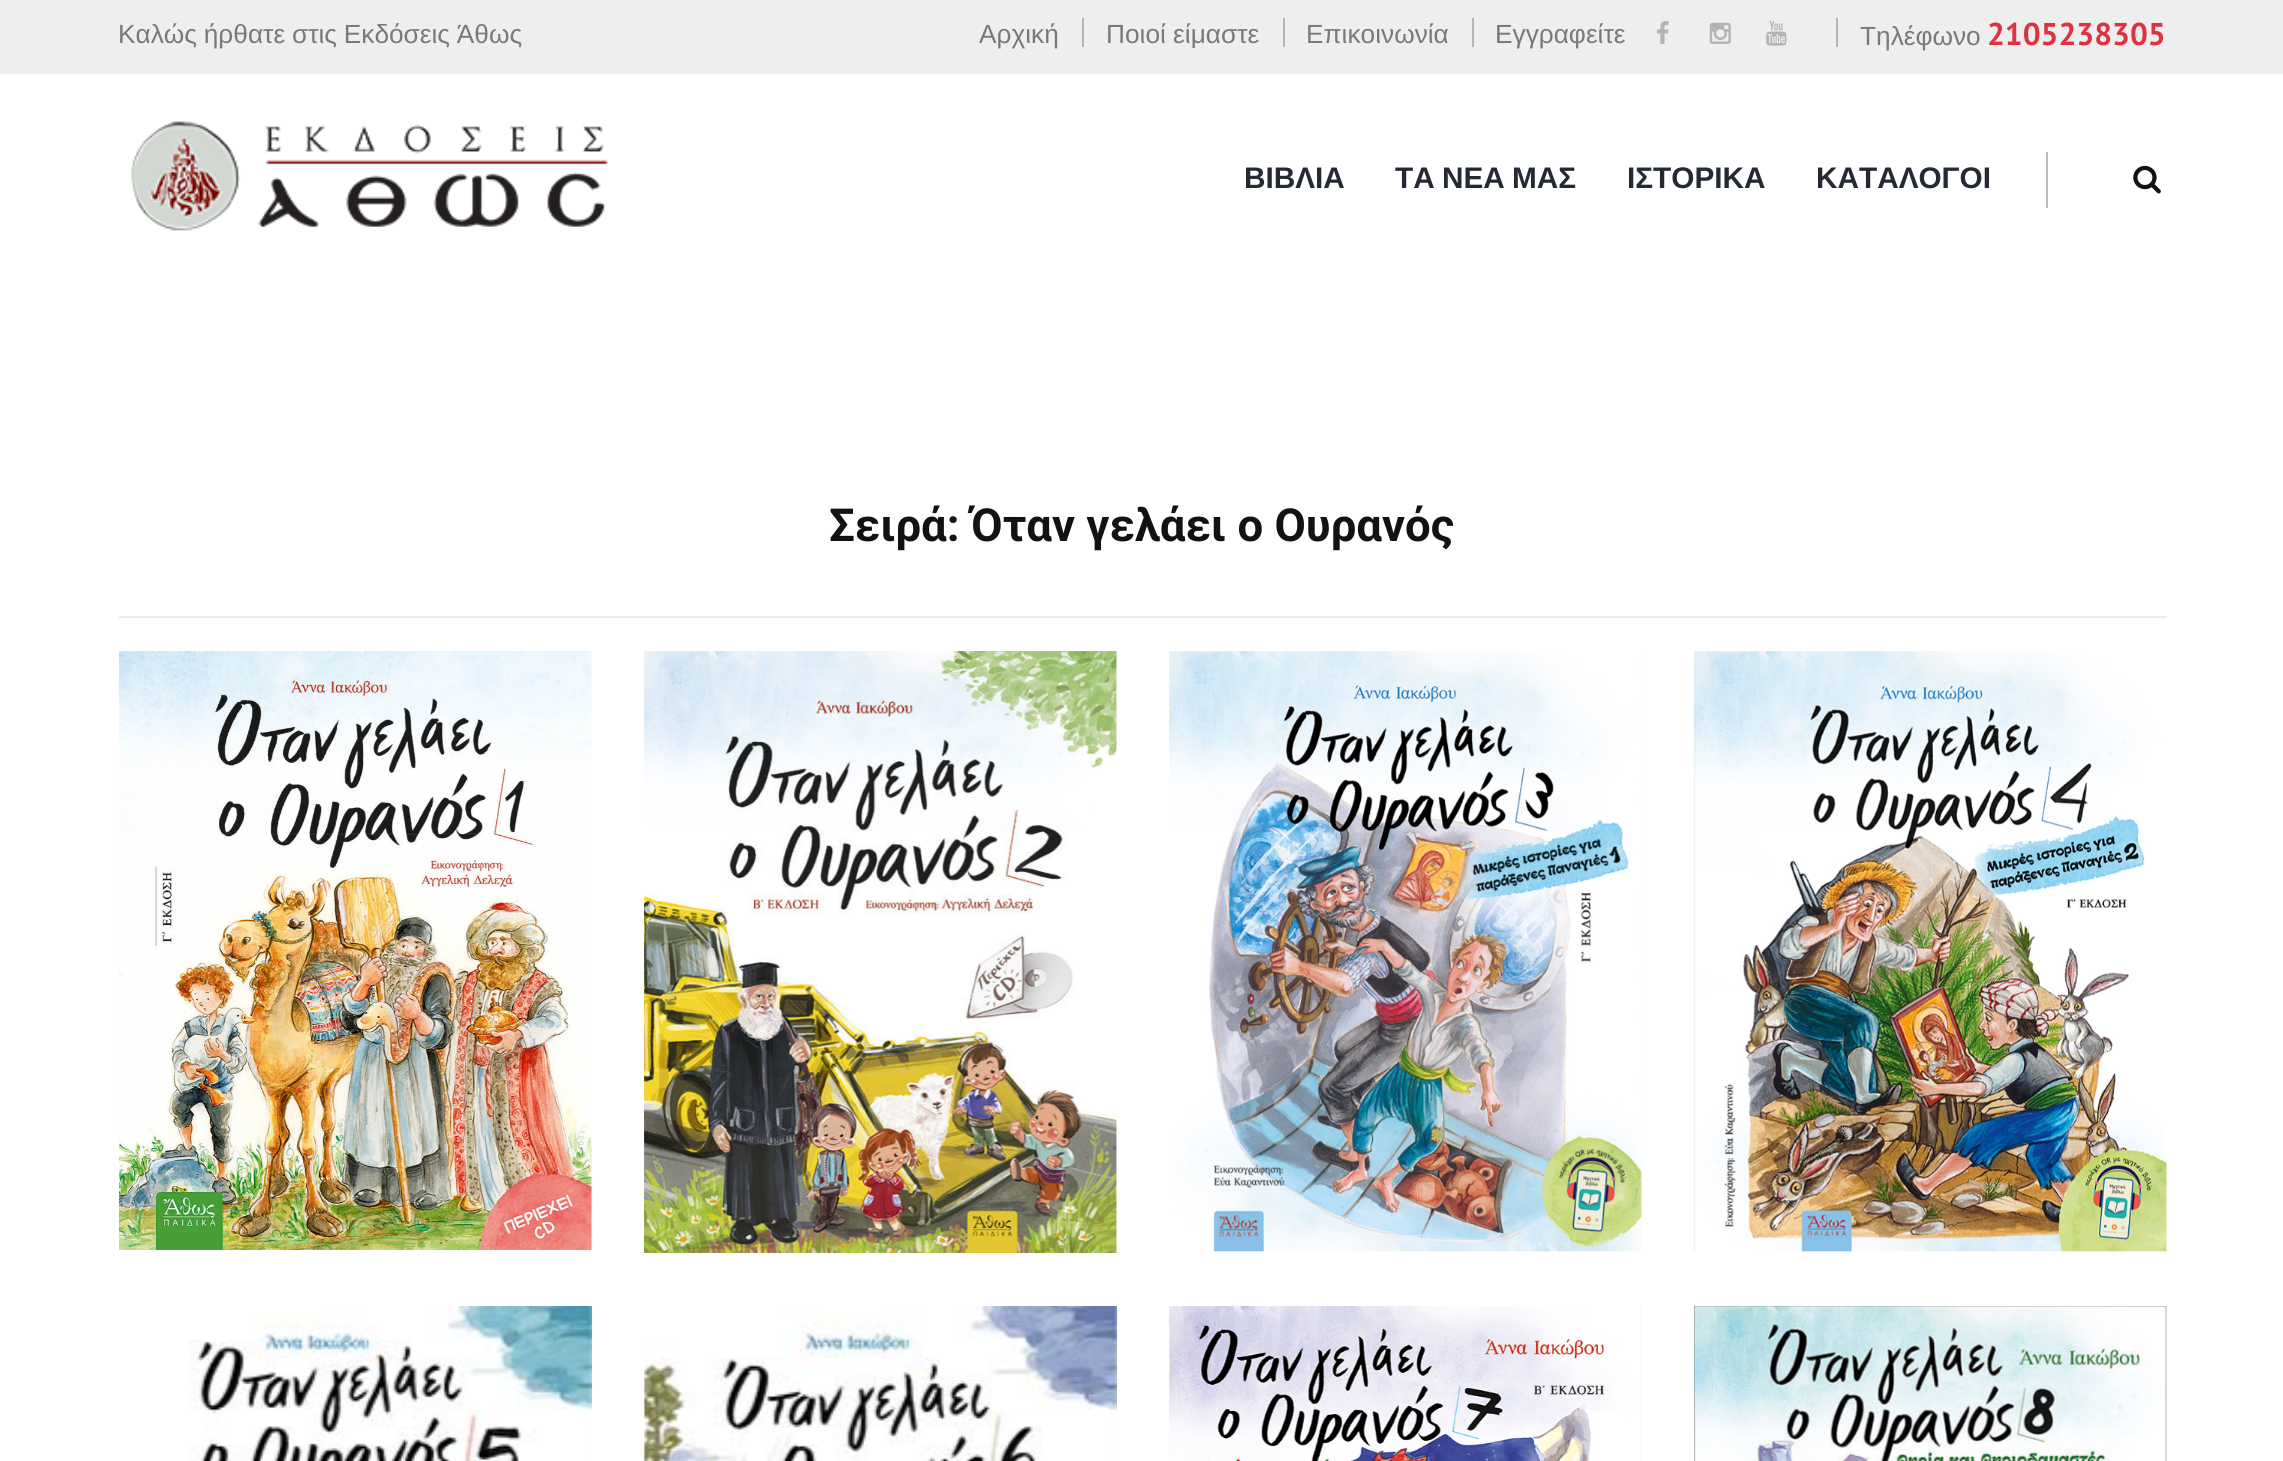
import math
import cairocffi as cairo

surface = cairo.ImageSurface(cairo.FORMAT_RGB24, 2283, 1461)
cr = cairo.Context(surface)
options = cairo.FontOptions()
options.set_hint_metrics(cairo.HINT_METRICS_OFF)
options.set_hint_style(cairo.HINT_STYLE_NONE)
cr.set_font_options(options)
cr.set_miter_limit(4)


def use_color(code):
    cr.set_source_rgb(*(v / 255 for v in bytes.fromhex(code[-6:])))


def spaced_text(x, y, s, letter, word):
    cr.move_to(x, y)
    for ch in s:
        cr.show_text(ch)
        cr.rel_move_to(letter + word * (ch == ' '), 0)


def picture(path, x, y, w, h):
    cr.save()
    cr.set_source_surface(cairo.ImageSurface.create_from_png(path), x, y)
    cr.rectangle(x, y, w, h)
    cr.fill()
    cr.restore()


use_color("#ffffff")
cr.paint()
use_color("#eeeeee")
cr.rectangle(0, 0, 2283, 74)
cr.fill()
cr.select_font_face("Liberation Sans")
cr.set_font_size(26.25)
use_color("#797979")
spaced_text(118, 43, "Καλώς ήρθατε στις Εκδόσεις Άθως", 0, -0.5)
cr.move_to(979, 43)
cr.show_text("Αρχική")
use_color("#b4b4b4")
cr.rectangle(1082, 18, 2, 29)
cr.fill()
use_color("#797979")
cr.move_to(1106, 43)
cr.show_text("Ποιοί είμαστε")
use_color("#b4b4b4")
cr.rectangle(1283, 18, 2, 29)
cr.fill()
use_color("#797979")
cr.move_to(1306, 43)
cr.show_text("Επικοινωνία")
use_color("#b4b4b4")
cr.rectangle(1472, 18, 2, 29)
cr.fill()
use_color("#797979")
cr.move_to(1495, 43)
cr.show_text("Eγγραφείτε")
picture("img1.png", 1656, 21, 13, 23)
picture("img2.png", 1709, 22, 22, 22)
picture("img3.png", 1766, 21, 21, 25)
use_color("#b4b4b4")
cr.rectangle(1836, 18, 2, 29)
cr.fill()
use_color("#797979")
cr.move_to(1860, 45)
cr.show_text("Τηλέφωνο")
cr.select_font_face("PT Sans", cairo.FONT_SLANT_NORMAL, cairo.FONT_WEIGHT_BOLD)
cr.set_font_size(31.5)
use_color("#de3241")
cr.move_to(1987, 45)
cr.show_text("2105238305")
picture("img4.png", 131, 121, 477, 110)
use_color("#bcbcbc")
cr.rectangle(2046, 152, 2, 56)
cr.fill()
cr.select_font_face("Liberation Sans", cairo.FONT_SLANT_NORMAL, cairo.FONT_WEIGHT_BOLD)
cr.set_font_size(29.75)
use_color("#232a34")
cr.move_to(1244, 188)
cr.show_text("ΒΙΒΛΙΑ")
spaced_text(1395, 188, "ΤΑ ΝΕΑ ΜΑΣ", 0, -1)
cr.move_to(1627, 188)
cr.show_text("ΙΣΤΟΡΙΚΑ")
cr.move_to(1816, 188)
cr.show_text("ΚΑΤΑΛΟΓΟΙ")
picture("img5.png", 2133, 165, 28, 29)
cr.select_font_face("Roboto", cairo.FONT_SLANT_NORMAL, cairo.FONT_WEIGHT_BOLD)
cr.set_font_size(45.5)
use_color("#121212")
cr.move_to(829, 541)
cr.show_text("Σειρά: Όταν γελάει ο Ουρανός")
use_color("#ebebeb")
cr.rectangle(119, 616, 2048, 2)
cr.fill()
picture("img6.png", 119, 651, 473, 599)
picture("img7.png", 644, 651, 473, 602)
picture("img8.png", 1169, 651, 473, 601)
picture("img9.png", 1694, 651, 473, 601)
picture("img10.png", 188, 1306, 404, 155)
picture("img11.png", 644, 1306, 473, 155)
picture("img12.png", 1169, 1306, 473, 155)
picture("img13.png", 1694, 1306, 473, 155)
surface.write_to_png("result.png")
